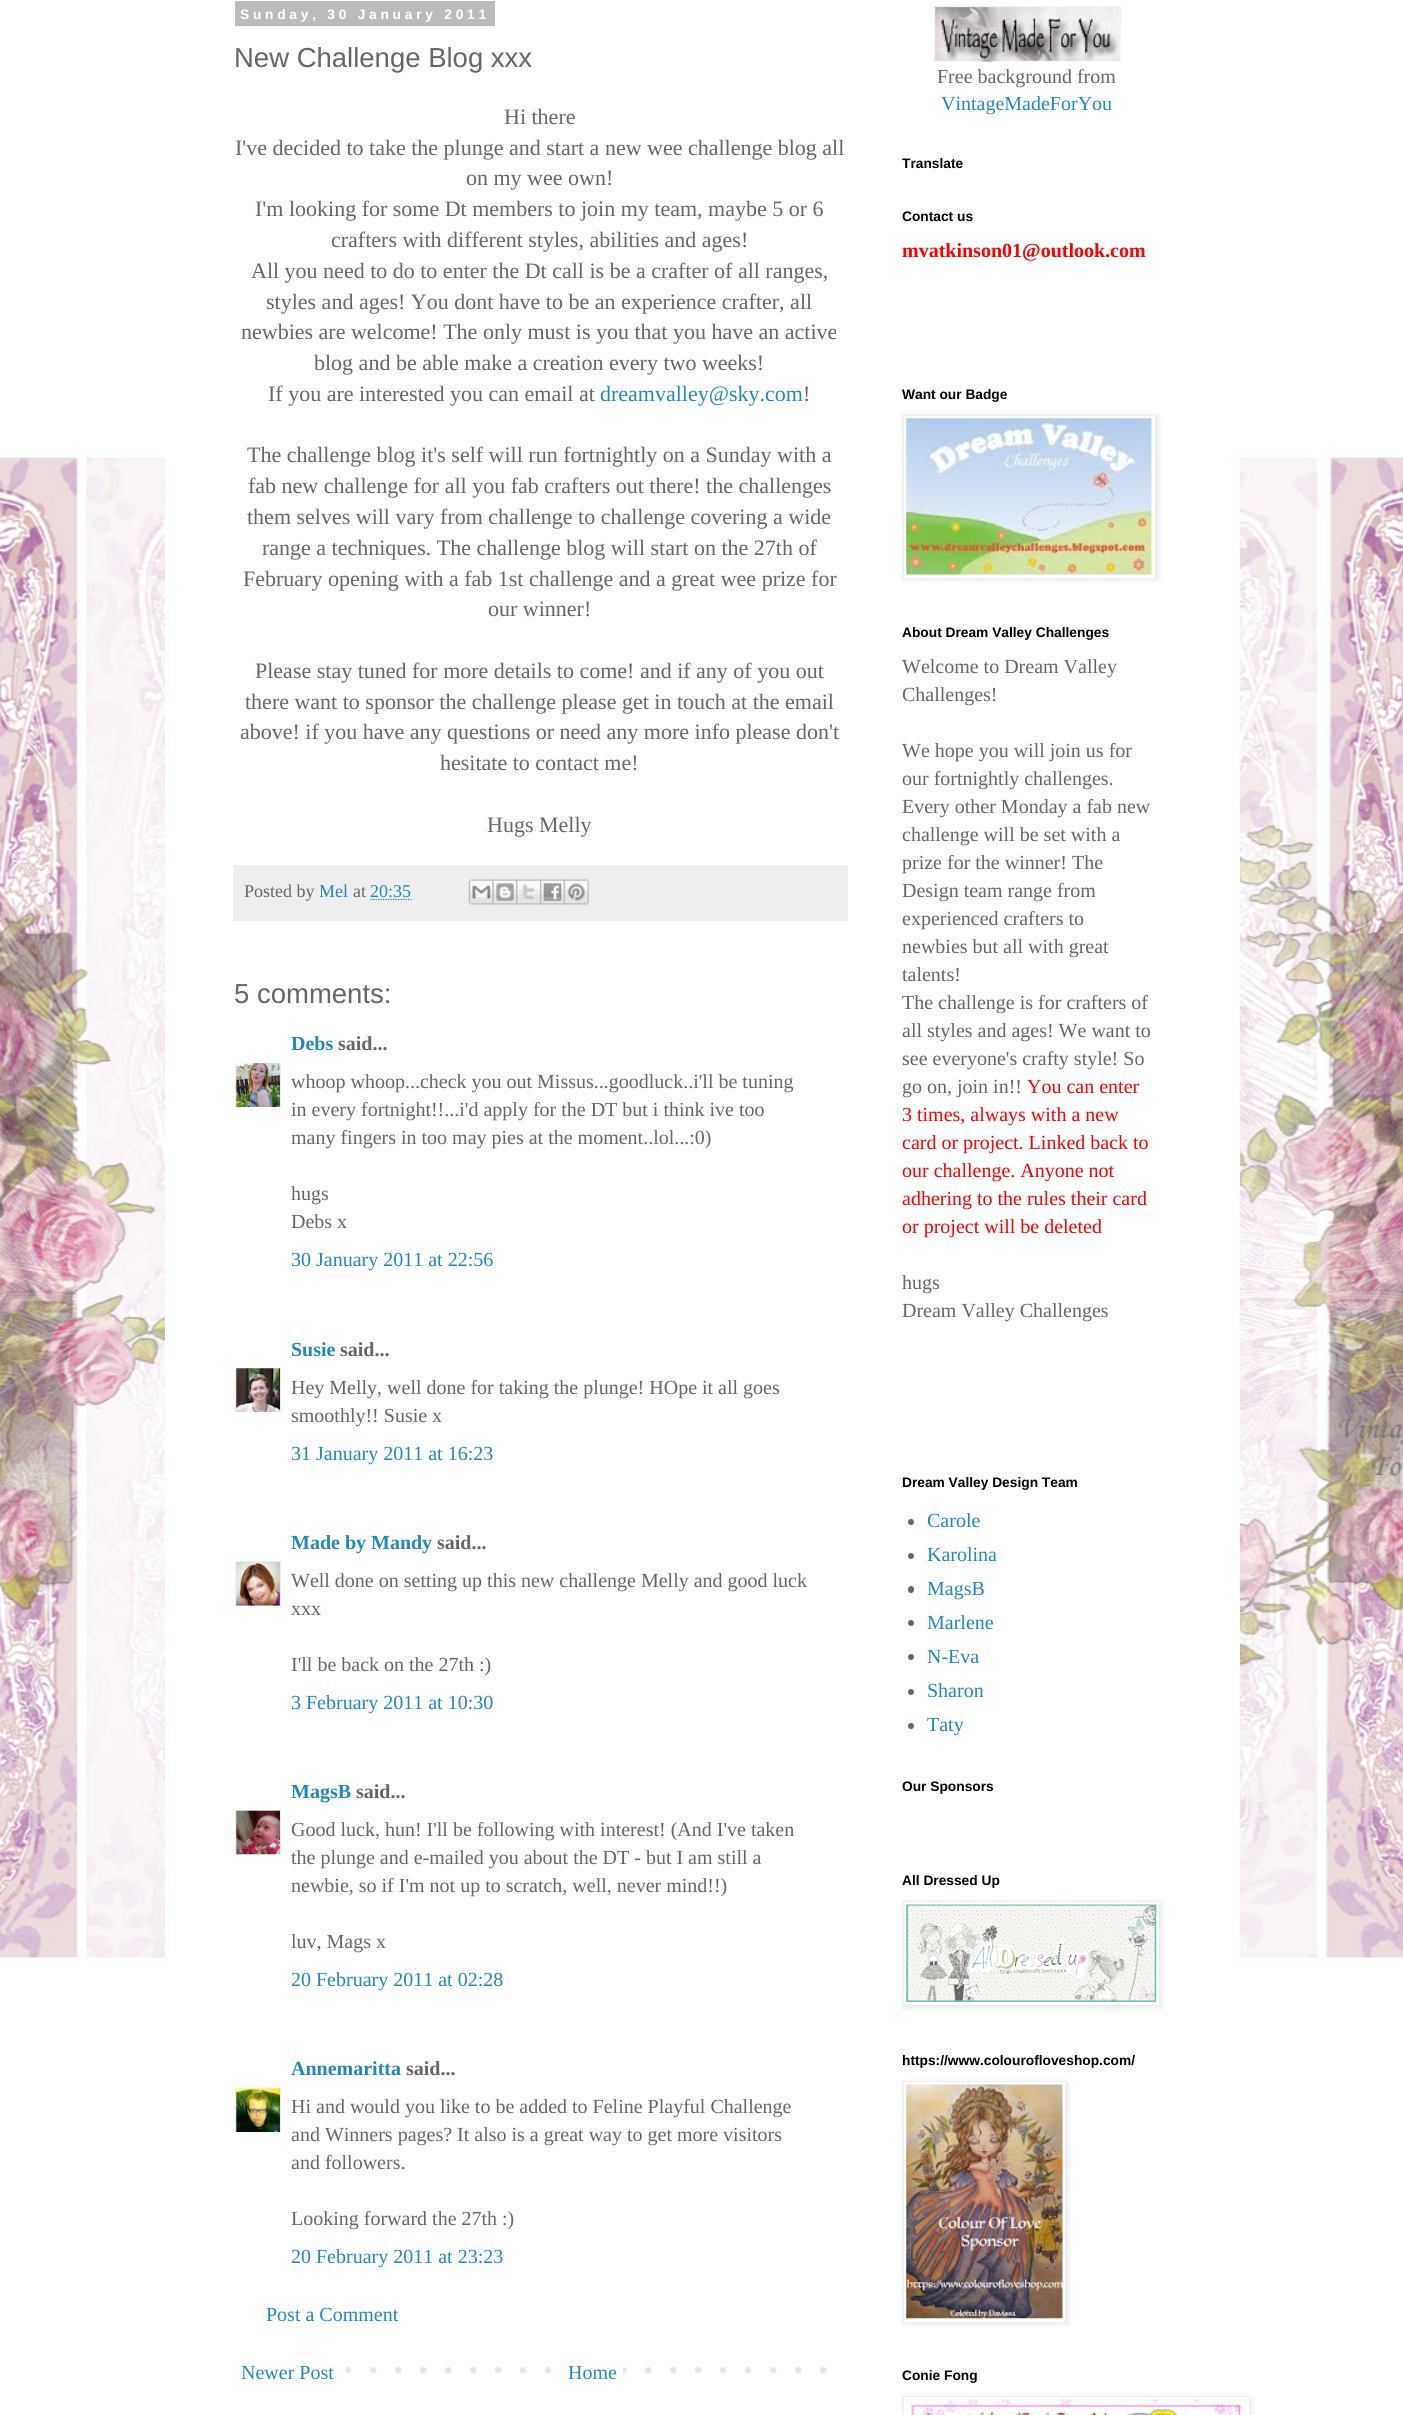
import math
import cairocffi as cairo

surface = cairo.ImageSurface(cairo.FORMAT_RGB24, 1403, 2415)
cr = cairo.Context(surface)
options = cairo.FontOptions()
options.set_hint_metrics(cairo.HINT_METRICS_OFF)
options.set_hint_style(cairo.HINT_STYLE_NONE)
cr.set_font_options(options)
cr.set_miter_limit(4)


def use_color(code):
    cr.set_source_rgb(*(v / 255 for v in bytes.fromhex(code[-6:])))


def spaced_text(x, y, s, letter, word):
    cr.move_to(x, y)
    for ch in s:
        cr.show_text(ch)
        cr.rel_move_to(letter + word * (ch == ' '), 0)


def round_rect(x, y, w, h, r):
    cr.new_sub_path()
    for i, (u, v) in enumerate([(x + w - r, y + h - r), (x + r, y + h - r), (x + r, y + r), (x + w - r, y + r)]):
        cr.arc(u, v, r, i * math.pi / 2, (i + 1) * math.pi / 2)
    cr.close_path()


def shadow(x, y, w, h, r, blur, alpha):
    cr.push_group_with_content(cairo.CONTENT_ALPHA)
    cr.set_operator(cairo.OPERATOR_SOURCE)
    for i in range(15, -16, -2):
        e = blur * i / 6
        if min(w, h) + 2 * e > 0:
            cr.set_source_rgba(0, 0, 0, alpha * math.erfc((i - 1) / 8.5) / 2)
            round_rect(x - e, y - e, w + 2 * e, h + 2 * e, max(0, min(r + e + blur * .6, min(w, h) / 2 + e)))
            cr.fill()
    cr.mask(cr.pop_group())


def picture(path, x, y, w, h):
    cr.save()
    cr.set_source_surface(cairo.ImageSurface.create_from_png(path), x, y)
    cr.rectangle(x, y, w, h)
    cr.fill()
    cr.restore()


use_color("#ffffff")
cr.paint()
picture("img1.png", 0, 457, 1403, 1501)
use_color("#ffffff")
cr.rectangle(165, 457, 1075, 1501)
cr.fill()
use_color("#bbbbbb")
cr.rectangle(235, 1, 260, 25)
cr.fill()
cr.select_font_face("Liberation Sans", cairo.FONT_SLANT_NORMAL, cairo.FONT_WEIGHT_BOLD)
cr.set_font_size(13.75)
use_color("#ffffff")
spaced_text(240, 19, "Sunday, 30 January 2011", 3.75, 0)
cr.select_font_face("Liberation Sans")
cr.set_font_size(27.5)
use_color("#666666")
cr.move_to(234, 67)
cr.show_text("New Challenge Blog xxx")
cr.select_font_face("Liberation Serif")
cr.set_font_size(22)
cr.move_to(504, 124)
cr.show_text("Hi there")
cr.move_to(235, 155)
cr.show_text("I've decided to take the plunge and start a new wee challenge blog all")
cr.move_to(466, 185)
cr.show_text("on my wee own!")
cr.move_to(255, 216)
cr.show_text("I'm looking for some Dt members to join my team, maybe 5 or 6")
cr.move_to(331, 247)
cr.show_text("crafters with different styles, abilities and ages!")
cr.move_to(251, 278)
cr.show_text("All you need to do to enter the Dt call is be a crafter of all ranges,")
cr.move_to(266, 309)
cr.show_text("styles and ages! You dont have to be an experience crafter, all")
cr.move_to(241, 339)
cr.show_text("newbies are welcome! The only must is you that you have an active")
cr.move_to(314, 370)
cr.show_text("blog and be able make a creation every two weeks!")
cr.move_to(268, 401)
cr.show_text("If you are interested you can email at")
use_color("#2288bb")
cr.move_to(600, 401)
cr.show_text("dreamvalley@sky.com")
use_color("#666666")
cr.move_to(803, 401)
cr.show_text("!")
cr.move_to(247, 462)
cr.show_text("The challenge blog it's self will run fortnightly on a Sunday with a")
cr.move_to(248, 493)
cr.show_text("fab new challenge for all you fab crafters out there! the challenges")
cr.move_to(247, 524)
cr.show_text("them selves will vary from challenge to challenge covering a wide")
cr.move_to(262, 555)
cr.show_text("range a techniques. The challenge blog will start on the 27th of")
cr.move_to(243, 586)
cr.show_text("February opening with a fab 1st challenge and a great wee prize for")
cr.move_to(488, 616)
cr.show_text("our winner!")
cr.move_to(255, 678)
cr.show_text("Please stay tuned for more details to come! and if any of you out")
cr.move_to(245, 709)
cr.show_text("there want to sponsor the challenge please get in touch at the email")
cr.move_to(240, 739)
cr.show_text("above! if you have any questions or need any more info please don't")
cr.move_to(440, 770)
cr.show_text("hesitate to contact me!")
cr.move_to(487, 832)
cr.show_text("Hugs Melly")
use_color("#eeeeee")
cr.rectangle(233, 865, 615, 56)
cr.fill()
cr.set_font_size(18)
use_color("#666666")
cr.move_to(244, 897)
cr.show_text("Posted by")
use_color("#2288bb")
cr.move_to(319, 897)
cr.show_text("Mel")
use_color("#666666")
cr.move_to(353, 897)
cr.show_text("at")
use_color("#2288bb")
cr.move_to(370, 897)
cr.show_text("20:35")
cr.new_path()
cr.move_to(370.5, 899.5)
cr.line_to(411.5, 899.5)
cr.set_line_width(1.2)
cr.set_dash([1.25, 1.25])
cr.stroke()
picture("img2.png", 468, 879, 26, 26)
picture("img3.png", 492, 879, 26, 26)
picture("img4.png", 516, 879, 26, 26)
picture("img5.png", 540, 879, 25, 26)
picture("img6.png", 563, 879, 26, 26)
cr.select_font_face("Liberation Sans")
cr.set_font_size(27.5)
use_color("#666666")
cr.move_to(234, 1003)
cr.show_text("5 comments:")
cr.select_font_face("Liberation Serif", cairo.FONT_SLANT_NORMAL, cairo.FONT_WEIGHT_BOLD)
cr.set_font_size(20)
use_color("#2288bb")
cr.move_to(291, 1050)
cr.show_text("Debs")
use_color("#666666")
cr.move_to(338, 1050)
cr.show_text("said...")
cr.save()
cr.rectangle(235, 1063, 46, 45)
cr.clip()
cr.rectangle(235.5, 1063.5, 45, 45)
use_color("#eeeeee")
cr.set_line_width(1)
cr.set_dash([])
cr.stroke()
cr.restore()
picture("img7.png", 236, 1063, 44, 44)
cr.select_font_face("Liberation Serif")
cr.move_to(291, 1088)
cr.show_text("whoop whoop...check you out Missus...goodluck..i'll be tuning")
cr.move_to(291, 1116)
cr.show_text("in every fortnight!!...i'd apply for the DT but i think ive too")
cr.move_to(291, 1144)
cr.show_text("many fingers in too may pies at the moment..lol...:0)")
cr.move_to(291, 1200)
cr.show_text("hugs")
cr.move_to(291, 1228)
cr.show_text("Debs x")
use_color("#2288bb")
cr.move_to(291, 1266)
cr.show_text("30 January 2011 at 22:56")
cr.select_font_face("Liberation Serif", cairo.FONT_SLANT_NORMAL, cairo.FONT_WEIGHT_BOLD)
cr.move_to(291, 1356)
cr.show_text("Susie")
use_color("#666666")
cr.move_to(340, 1356)
cr.show_text("said...")
cr.save()
cr.rectangle(235, 1368, 46, 45)
cr.clip()
cr.rectangle(235.5, 1368.5, 45, 45)
use_color("#eeeeee")
cr.set_line_width(1)
cr.set_dash([])
cr.stroke()
cr.restore()
picture("img8.png", 236, 1368, 44, 44)
cr.select_font_face("Liberation Serif")
cr.move_to(291, 1394)
cr.show_text("Hey Melly, well done for taking the plunge! HOpe it all goes")
cr.move_to(291, 1422)
cr.show_text("smoothly!! Susie x")
use_color("#2288bb")
cr.move_to(291, 1460)
cr.show_text("31 January 2011 at 16:23")
cr.select_font_face("Liberation Serif", cairo.FONT_SLANT_NORMAL, cairo.FONT_WEIGHT_BOLD)
cr.move_to(291, 1549)
cr.show_text("Made by Mandy")
use_color("#666666")
cr.move_to(437, 1549)
cr.show_text("said...")
cr.save()
cr.rectangle(235, 1561, 46, 45)
cr.clip()
cr.rectangle(235.5, 1561.5, 45, 46)
use_color("#eeeeee")
cr.set_line_width(1)
cr.set_dash([])
cr.stroke()
cr.restore()
picture("img9.png", 236, 1562, 44, 44)
cr.select_font_face("Liberation Serif")
cr.move_to(291, 1587)
cr.show_text("Well done on setting up this new challenge Melly and good luck")
cr.move_to(291, 1615)
cr.show_text("xxx")
cr.move_to(291, 1671)
cr.show_text("I'll be back on the 27th :)")
use_color("#2288bb")
cr.move_to(291, 1709)
cr.show_text("3 February 2011 at 10:30")
cr.select_font_face("Liberation Serif", cairo.FONT_SLANT_NORMAL, cairo.FONT_WEIGHT_BOLD)
cr.move_to(291, 1798)
cr.show_text("MagsB")
use_color("#666666")
cr.move_to(356, 1798)
cr.show_text("said...")
cr.save()
cr.rectangle(235, 1810, 46, 45)
cr.clip()
cr.rectangle(235.5, 1810.5, 45, 45)
use_color("#eeeeee")
cr.set_line_width(1)
cr.set_dash([])
cr.stroke()
cr.restore()
picture("img10.png", 236, 1810, 44, 45)
cr.select_font_face("Liberation Serif")
cr.move_to(291, 1836)
cr.show_text("Good luck, hun! I'll be following with interest! (And I've taken")
cr.move_to(291, 1864)
cr.show_text("the plunge and e-mailed you about the DT - but I am still a")
cr.move_to(291, 1892)
cr.show_text("newbie, so if I'm not up to scratch, well, never mind!!)")
cr.move_to(291, 1948)
cr.show_text("luv, Mags x")
use_color("#2288bb")
cr.move_to(291, 1986)
cr.show_text("20 February 2011 at 02:28")
cr.select_font_face("Liberation Serif", cairo.FONT_SLANT_NORMAL, cairo.FONT_WEIGHT_BOLD)
cr.move_to(291, 2075)
cr.show_text("Annemaritta")
use_color("#666666")
cr.move_to(406, 2075)
cr.show_text("said...")
cr.save()
cr.rectangle(235, 2088, 46, 45)
cr.clip()
cr.rectangle(235.5, 2088.5, 45, 45)
use_color("#eeeeee")
cr.set_line_width(1)
cr.set_dash([])
cr.stroke()
cr.restore()
picture("img11.png", 236, 2088, 44, 44)
cr.select_font_face("Liberation Serif")
cr.move_to(291, 2113)
cr.show_text("Hi and would you like to be added to Feline Playful Challenge")
cr.move_to(291, 2141)
cr.show_text("and Winners pages? It also is a great way to get more visitors")
cr.move_to(291, 2169)
cr.show_text("and followers.")
cr.move_to(291, 2225)
cr.show_text("Looking forward the 27th :)")
use_color("#2288bb")
cr.move_to(291, 2263)
cr.show_text("20 February 2011 at 23:23")
cr.move_to(266, 2321)
cr.show_text("Post a Comment")
picture("img12.png", 345, 2367, 482, 7)
cr.move_to(241, 2379)
cr.show_text("Newer Post")
use_color("#ffffff")
cr.rectangle(570, 2367, 53, 7)
cr.fill()
use_color("#2288bb")
cr.move_to(568, 2379)
cr.show_text("Home")
picture("img13.png", 933, 5, 189, 57)
use_color("#666666")
cr.move_to(937, 83)
cr.show_text("Free background from")
use_color("#2288bb")
cr.move_to(941, 110)
cr.show_text("VintageMadeForYou")
cr.select_font_face("Liberation Sans", cairo.FONT_SLANT_NORMAL, cairo.FONT_WEIGHT_BOLD)
cr.set_font_size(13.75)
use_color("#000000")
cr.move_to(902, 168)
cr.show_text("Translate")
cr.move_to(902, 221)
cr.show_text("Contact us")
cr.select_font_face("Liberation Serif", cairo.FONT_SLANT_NORMAL, cairo.FONT_WEIGHT_BOLD)
cr.set_font_size(20)
use_color("#ff0000")
cr.move_to(902, 257)
cr.show_text("mvatkinson01@outlook.com")
cr.select_font_face("Liberation Sans", cairo.FONT_SLANT_NORMAL, cairo.FONT_WEIGHT_BOLD)
cr.set_font_size(13.75)
use_color("#000000")
cr.move_to(902, 399)
cr.show_text("Want our Badge")
use_color("#000000")
shadow(904, 416, 254, 164, 0, 3, 0.1)
use_color("#ffffff")
cr.rectangle(903.5, 415.5, 252, 163)
cr.fill_preserve()
use_color("#eeeeee")
cr.set_line_width(1)
cr.set_dash([])
cr.stroke()
picture("img14.png", 906, 418, 247, 157)
use_color("#000000")
cr.move_to(902, 637)
cr.show_text("About Dream Valley Challenges")
cr.select_font_face("Liberation Serif")
cr.set_font_size(20)
use_color("#666666")
cr.move_to(902, 673)
cr.show_text("Welcome to Dream Valley")
cr.move_to(902, 701)
cr.show_text("Challenges!")
cr.move_to(902, 757)
cr.show_text("We hope you will join us for")
cr.move_to(902, 785)
cr.show_text("our fortnightly challenges.")
cr.move_to(902, 813)
cr.show_text("Every other Monday a fab new")
cr.move_to(902, 841)
cr.show_text("challenge will be set with a")
cr.move_to(902, 869)
cr.show_text("prize for the winner! The")
cr.move_to(902, 897)
cr.show_text("Design team range from")
cr.move_to(902, 925)
cr.show_text("experienced crafters to")
cr.move_to(902, 953)
cr.show_text("newbies but all with great")
cr.move_to(902, 981)
cr.show_text("talents!")
cr.move_to(902, 1009)
cr.show_text("The challenge is for crafters of")
cr.move_to(902, 1037)
cr.show_text("all styles and ages! We want to")
cr.move_to(902, 1065)
cr.show_text("see everyone's crafty style! So")
cr.move_to(902, 1093)
cr.show_text("go on, join in!!")
use_color("#ff0000")
cr.move_to(1027, 1093)
cr.show_text("You can enter")
cr.move_to(902, 1121)
cr.show_text("3 times, always with a new")
cr.move_to(902, 1149)
cr.show_text("card or project. Linked back to")
cr.move_to(902, 1177)
cr.show_text("our challenge. Anyone not")
cr.move_to(902, 1205)
cr.show_text("adhering to the rules their card")
cr.move_to(902, 1233)
cr.show_text("or project will be deleted")
use_color("#666666")
cr.move_to(902, 1289)
cr.show_text("hugs")
cr.move_to(902, 1317)
cr.show_text("Dream Valley Challenges")
cr.select_font_face("Liberation Sans", cairo.FONT_SLANT_NORMAL, cairo.FONT_WEIGHT_BOLD)
cr.set_font_size(13.75)
use_color("#000000")
cr.move_to(902, 1487)
cr.show_text("Dream Valley Design Team")
use_color("#666666")
cr.new_path()
cr.arc(911, 1522, 3, 0, 2 * math.pi)
cr.fill()
cr.select_font_face("Liberation Serif")
cr.set_font_size(20)
use_color("#2288bb")
cr.move_to(927, 1527)
cr.show_text("Carole")
use_color("#666666")
cr.new_path()
cr.arc(911, 1556, 3, 0, 2 * math.pi)
cr.fill()
use_color("#2288bb")
cr.move_to(927, 1561)
cr.show_text("Karolina")
use_color("#666666")
round_rect(908, 1586, 6, 7, 3)
cr.fill()
use_color("#2288bb")
cr.move_to(927, 1595)
cr.show_text("MagsB")
use_color("#666666")
cr.new_path()
cr.arc(911, 1623, 3, 0, 2 * math.pi)
cr.fill()
use_color("#2288bb")
cr.move_to(927, 1629)
cr.show_text("Marlene")
use_color("#666666")
cr.new_path()
cr.arc(911, 1657, 3, 0, 2 * math.pi)
cr.fill()
use_color("#2288bb")
cr.move_to(927, 1663)
cr.show_text("N-Eva")
use_color("#666666")
cr.new_path()
cr.arc(911, 1692, 3, 0, 2 * math.pi)
cr.fill()
use_color("#2288bb")
cr.move_to(927, 1697)
cr.show_text("Sharon")
use_color("#666666")
cr.new_path()
cr.arc(911, 1726, 3, 0, 2 * math.pi)
cr.fill()
use_color("#2288bb")
cr.move_to(927, 1731)
cr.show_text("Taty")
cr.select_font_face("Liberation Sans", cairo.FONT_SLANT_NORMAL, cairo.FONT_WEIGHT_BOLD)
cr.set_font_size(13.75)
use_color("#000000")
cr.move_to(902, 1791)
cr.show_text("Our Sponsors")
cr.move_to(902, 1885)
cr.show_text("All Dressed Up")
use_color("#000000")
shadow(904, 1903, 257, 105, 0, 3, 0.1)
use_color("#ffffff")
cr.rectangle(903.5, 1901.5, 256, 104)
cr.fill_preserve()
use_color("#eeeeee")
cr.stroke()
picture("img15.png", 906, 1904, 251, 98)
use_color("#000000")
cr.move_to(902, 2065)
cr.show_text("https://www.colourofloveshop.com/")
use_color("#000000")
shadow(904, 2083, 164, 241, 0, 3, 0.1)
use_color("#ffffff")
cr.rectangle(903.5, 2081.5, 162, 241)
cr.fill_preserve()
use_color("#eeeeee")
cr.stroke()
picture("img16.png", 906, 2084, 157, 235)
use_color("#000000")
cr.move_to(902, 2380)
cr.show_text("Conie Fong")
use_color("#000000")
shadow(904, 2398, 347, 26, 0, 3, 0.1)
use_color("#ffffff")
cr.rectangle(903.5, 2396.5, 346, 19)
cr.fill_preserve()
use_color("#eeeeee")
cr.stroke()
picture("img17.png", 906, 2399, 340, 16)
surface.write_to_png("result.png")
